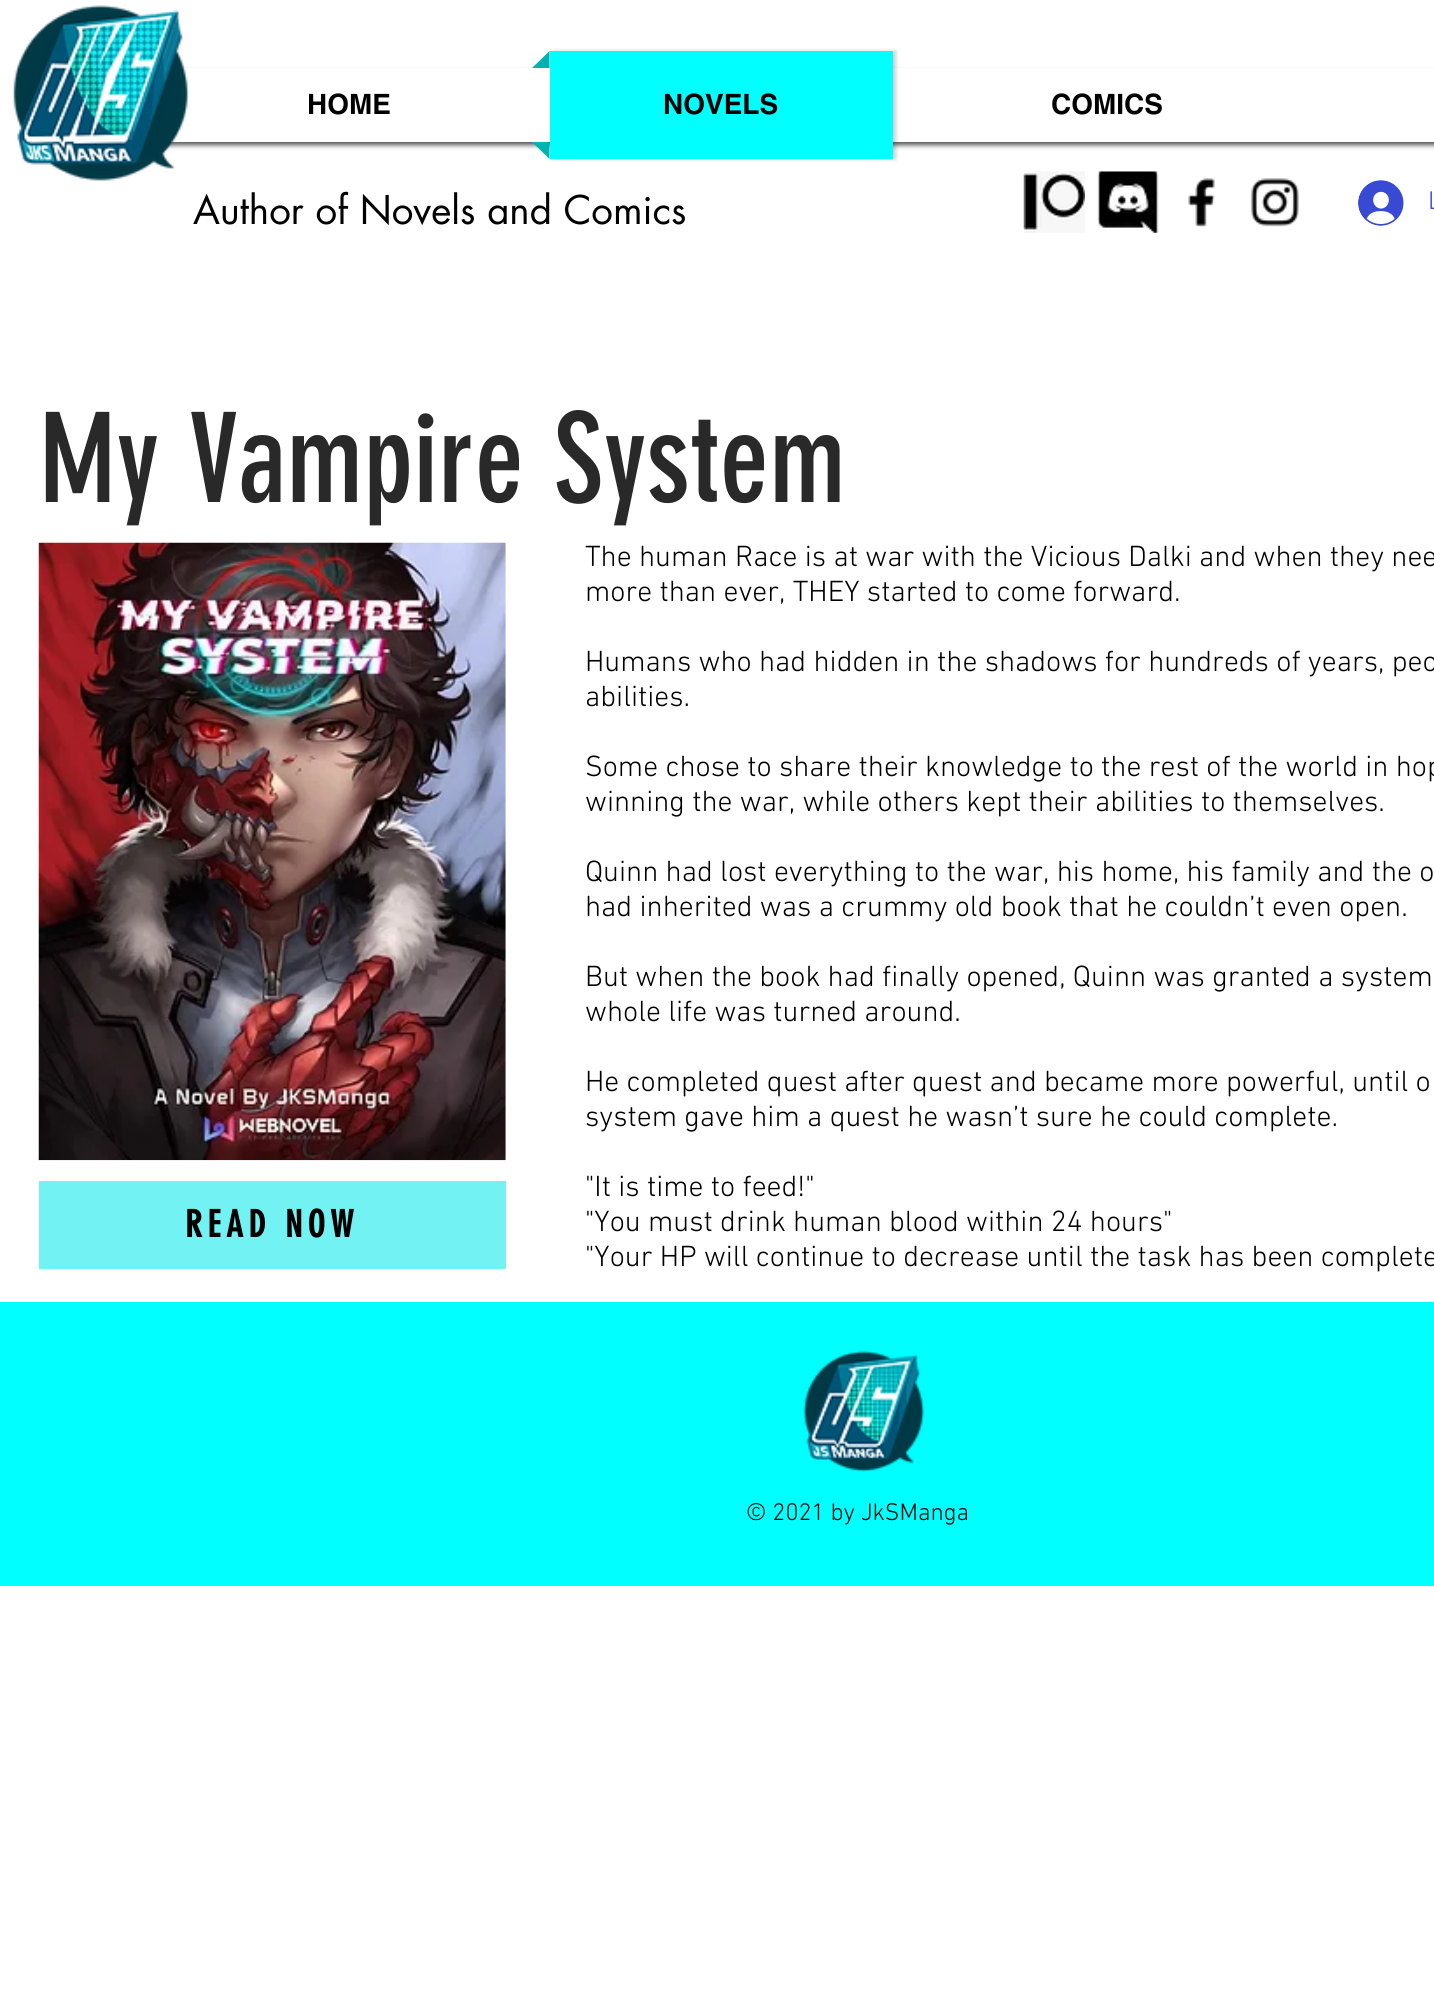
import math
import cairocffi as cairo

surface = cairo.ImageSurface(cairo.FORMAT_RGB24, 1434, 1989)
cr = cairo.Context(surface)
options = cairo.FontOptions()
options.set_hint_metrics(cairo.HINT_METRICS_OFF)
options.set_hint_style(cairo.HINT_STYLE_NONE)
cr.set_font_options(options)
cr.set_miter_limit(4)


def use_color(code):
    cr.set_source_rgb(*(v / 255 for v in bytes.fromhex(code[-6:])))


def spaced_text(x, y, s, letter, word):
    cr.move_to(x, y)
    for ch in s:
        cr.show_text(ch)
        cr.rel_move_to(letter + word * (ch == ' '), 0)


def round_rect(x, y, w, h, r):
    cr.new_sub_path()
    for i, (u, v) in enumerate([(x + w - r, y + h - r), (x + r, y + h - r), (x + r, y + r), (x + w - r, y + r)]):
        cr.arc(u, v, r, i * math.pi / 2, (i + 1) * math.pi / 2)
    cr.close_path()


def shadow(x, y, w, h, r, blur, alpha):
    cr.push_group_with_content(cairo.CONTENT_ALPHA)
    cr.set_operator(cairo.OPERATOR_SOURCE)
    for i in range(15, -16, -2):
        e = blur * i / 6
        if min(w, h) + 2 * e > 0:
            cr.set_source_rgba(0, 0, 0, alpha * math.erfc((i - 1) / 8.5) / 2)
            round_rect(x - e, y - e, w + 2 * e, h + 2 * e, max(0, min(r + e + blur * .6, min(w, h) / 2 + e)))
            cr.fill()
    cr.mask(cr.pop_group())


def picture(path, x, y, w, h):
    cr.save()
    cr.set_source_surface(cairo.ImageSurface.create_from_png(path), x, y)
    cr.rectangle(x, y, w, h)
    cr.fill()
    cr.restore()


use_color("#ffffff")
cr.paint()
use_color("#000000")
shadow(166, 72, 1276, 73, 0, 2.5, 0.7)
use_color("#ffffff")
cr.rectangle(167, 68, 1267, 74)
cr.fill()
picture("img1.png", 13, 5, 176, 176)
cr.select_font_face("helvetica", cairo.FONT_SLANT_NORMAL, cairo.FONT_WEIGHT_BOLD)
cr.set_font_size(28)
use_color("#000000")
cr.move_to(307, 114)
cr.show_text("HOME")
use_color("#000000")
shadow(553, 51, 343, 108, 0, 2, 0.2)
use_color("#00b3b3")
cr.new_path()
cr.move_to(549.5, 68)
cr.line_to(532, 68)
cr.line_to(549.5, 51)
cr.close_path()
cr.fill()
use_color("#00ffff")
cr.rectangle(550, 51, 343, 108)
cr.fill()
use_color("#00b3b3")
cr.new_path()
cr.move_to(532, 142)
cr.line_to(549.5, 142)
cr.line_to(549.5, 159)
cr.close_path()
cr.fill()
use_color("#000000")
cr.move_to(663, 114)
cr.show_text("NOVELS")
cr.move_to(1051, 114)
cr.show_text("COMICS")
cr.select_font_face("futura")
cr.set_font_size(38.5)
cr.move_to(193, 224)
cr.show_text("Author of Novels and Comics")
picture("img2.png", 1023, 171, 62, 62)
picture("img3.png", 1097, 171, 62, 62)
picture("img4.png", 1188, 178, 27, 49)
picture("img5.png", 1250, 178, 49, 49)
picture("img6.png", 1358, 180, 46, 46)
cr.select_font_face("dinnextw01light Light")
cr.set_font_size(26)
use_color("#384ad3")
cr.move_to(1428, 209)
cr.show_text("L")
cr.select_font_face("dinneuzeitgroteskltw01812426")
cr.set_font_size(122.5)
use_color("#292929")
cr.move_to(39, 502)
cr.show_text("My Vampire System")
picture("img7.png", 38, 542, 468, 619)
cr.select_font_face("dinnextw01light Light")
cr.set_font_size(29.75)
use_color("#000000")
cr.move_to(585, 566)
cr.show_text("The human Race is at war with the Vicious Dalki and when they nee")
cr.move_to(585, 601)
cr.show_text("more than ever, THEY started to come forward.")
cr.move_to(585, 671)
cr.show_text("Humans who had hidden in the shadows for hundreds of years, peo")
cr.move_to(585, 706)
cr.show_text("abilities.")
cr.move_to(585, 776)
cr.show_text("Some chose to share their knowledge to the rest of the world in hop")
cr.move_to(585, 811)
cr.show_text("winning the war, while others kept their abilities to themselves.")
cr.move_to(585, 881)
cr.show_text("Quinn had lost everything to the war, his home, his family and the o")
cr.move_to(585, 916)
cr.show_text("had inherited was a crummy old book that he couldn’t even open.")
cr.move_to(585, 986)
cr.show_text("But when the book had finally opened, Quinn was granted a system")
cr.move_to(585, 1021)
cr.show_text("whole life was turned around.")
cr.move_to(585, 1091)
cr.show_text("He completed quest after quest and became more powerful, until o")
cr.move_to(585, 1126)
cr.show_text("system gave him a quest he wasn’t sure he could complete.")
cr.move_to(585, 1196)
cr.show_text("\"It is time to feed!\"")
cr.move_to(585, 1231)
cr.show_text("\"You must drink human blood within 24 hours\"")
cr.move_to(585, 1266)
cr.show_text("\"Your HP will continue to decrease until the task has been complete")
use_color("#72f2f2")
cr.rectangle(39, 1181, 467, 88)
cr.fill()
cr.select_font_face("dinneuzeitgroteskltw01812426", cairo.FONT_SLANT_NORMAL, cairo.FONT_WEIGHT_BOLD)
cr.set_font_size(36.75)
use_color("#000000")
spaced_text(185, 1237, "READ NOW", 5.5, 0)
use_color("#00ffff")
cr.rectangle(0, 1302, 1434, 284)
cr.fill()
picture("img8.png", 803, 1350, 122, 122)
cr.select_font_face("dinnextw01light Light")
cr.set_font_size(24.5)
use_color("#000000")
cr.move_to(746, 1520)
cr.show_text("© 2021 by JkSManga")
surface.write_to_png("result.png")
